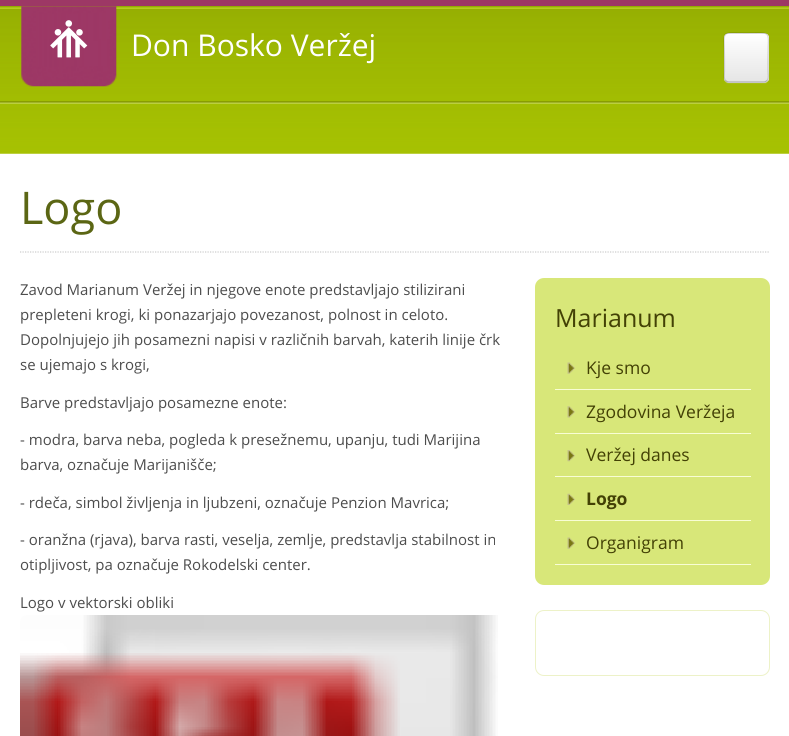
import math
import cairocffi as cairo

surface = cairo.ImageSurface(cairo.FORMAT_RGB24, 789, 736)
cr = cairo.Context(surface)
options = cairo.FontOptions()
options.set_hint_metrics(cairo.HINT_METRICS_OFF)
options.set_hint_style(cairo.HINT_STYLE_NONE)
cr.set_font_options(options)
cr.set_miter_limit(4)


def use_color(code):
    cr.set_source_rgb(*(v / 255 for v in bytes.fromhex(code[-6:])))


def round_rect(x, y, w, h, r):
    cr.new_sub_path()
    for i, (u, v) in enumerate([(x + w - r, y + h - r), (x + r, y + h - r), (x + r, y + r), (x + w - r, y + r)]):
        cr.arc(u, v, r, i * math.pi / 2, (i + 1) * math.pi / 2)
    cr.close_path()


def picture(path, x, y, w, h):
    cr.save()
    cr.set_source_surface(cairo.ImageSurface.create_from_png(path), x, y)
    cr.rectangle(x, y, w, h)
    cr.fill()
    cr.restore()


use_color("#ffffff")
cr.paint()
picture("img1.png", 0, 6, 789, 148)
use_color("#9d3865")
cr.rectangle(0, 0, 789, 6)
cr.fill()
picture("img3.png", 21, 6, 96, 81)
picture("img2.png", 50, 20, 38, 38)
cr.select_font_face("Open Sans")
cr.set_font_size(30)
use_color("#ffffff")
cr.move_to(131, 56)
cr.show_text("Don Bosko Veržej")
use_color("#a7bf15")
cr.new_path()
cr.move_to(724, 79)
cr.curve_to(724, 85, 731, 84, 735, 84)
cr.line_to(765, 84)
cr.curve_to(770, 83, 769, 76, 769, 72)
cr.line_to(769, 37)
cr.line_to(769, 71)
cr.curve_to(769, 82, 769, 82, 758, 82)
cr.line_to(735, 82)
cr.curve_to(731, 82, 725, 84, 724, 79)
cr.close_path()
cr.fill()
use_color("#e8e8e8")
round_rect(724, 33, 45, 50, 5)
cr.fill()
cr.save()
round_rect(724, 33, 45, 50, 5)
cr.clip()
gradient = cairo.LinearGradient(746, 34, 746, 81)
gradient.add_color_stop_rgba(0, 1, 1, 1, 1)
gradient.add_color_stop_rgba(1, 0.902, 0.902, 0.902, 1)
cr.set_source(gradient)
cr.rectangle(724, 34, 45, 47)
cr.fill()
cr.restore()
cr.new_path()
cr.move_to(767, 80.5)
cr.curve_to(766, 81.5, 765, 82, 764, 82)
cr.line_to(729, 82)
cr.curve_to(727.5, 82, 726.5, 81.5, 725.5, 80.5)
cr.set_source_rgba(0, 0, 0, 0.25)
cr.set_line_width(1.2)
cr.stroke()
cr.new_path()
cr.move_to(725.5, 80.5)
cr.curve_to(723.5, 78.5, 724.5, 73, 724.5, 71)
cr.line_to(724.5, 57.5)
cr.curve_to(724.5, 29.5, 719.5, 33, 746, 33)
cr.curve_to(773, 33, 768, 29.5, 768, 57.5)
cr.line_to(768, 71)
cr.curve_to(768, 73, 769, 78.5, 767, 80.5)
cr.set_source_rgba(0, 0, 0, 0.15)
cr.stroke()
cr.new_path()
cr.move_to(20, 252)
cr.line_to(770, 252)
use_color("#cccccc")
cr.set_dash([1.25, 1.25])
cr.stroke()
cr.set_font_size(45)
use_color("#5b6614")
cr.move_to(20, 224)
cr.show_text("Logo")
cr.set_font_size(15)
use_color("#4d4d4d")
cr.move_to(20, 295)
cr.show_text("Zavod Marianum Veržej in njegove enote predstavljajo stilizirani")
cr.move_to(20, 320)
cr.show_text("prepleteni krogi, ki ponazarjajo povezanost, polnost in celoto.")
cr.move_to(20, 345)
cr.show_text("Dopolnjujejo jih posamezni napisi v različnih barvah, katerih linije črk")
cr.move_to(20, 370)
cr.show_text("se ujemajo s krogi,")
cr.move_to(20, 408)
cr.show_text("Barve predstavljajo posamezne enote:")
cr.move_to(20, 445)
cr.show_text("- modra, barva neba, pogleda k presežnemu, upanju, tudi Marijina")
cr.move_to(20, 470)
cr.show_text("barva, označuje Marijanišče;")
cr.move_to(20, 508)
cr.show_text("- rdeča, simbol življenja in ljubzeni, označuje Penzion Mavrica;")
cr.move_to(20, 545)
cr.show_text("- oranžna (rjava), barva rasti, veselja, zemlje, predstavlja stabilnost in")
cr.move_to(20, 570)
cr.show_text("otipljivost, pa označuje Rokodelski center.")
cr.move_to(20, 608)
cr.show_text("Logo v vektorski obliki")
picture("img4.png", 20, 615, 478, 121)
use_color("#d8e779")
cr.new_path()
cr.move_to(544, 278)
cr.line_to(761, 278)
cr.curve_to(766, 278, 770, 282, 770, 287)
cr.line_to(770, 340)
cr.line_to(535, 340)
cr.line_to(535, 287)
cr.curve_to(535, 282, 539, 278, 544, 278)
cr.close_path()
cr.fill()
cr.set_font_size(25)
use_color("#434105")
cr.move_to(555, 327)
cr.show_text("Marianum")
use_color("#d8e779")
round_rect(535, 328, 235, 257, 9)
cr.fill()
picture("img5.png", 567, 362, 8, 12)
use_color("#f8fdd4")
cr.rectangle(555, 389, 196, 1)
cr.fill()
cr.set_font_size(17.5)
use_color("#434105")
cr.move_to(586, 374)
cr.show_text("Kje smo")
picture("img6.png", 567, 406, 8, 12)
use_color("#f8fdd4")
cr.rectangle(555, 433, 196, 1)
cr.fill()
use_color("#434105")
cr.move_to(586, 418)
cr.show_text("Zgodovina Veržeja")
picture("img7.png", 567, 450, 8, 12)
use_color("#f8fdd4")
cr.rectangle(555, 476, 196, 1)
cr.fill()
use_color("#434105")
cr.move_to(586, 461)
cr.show_text("Veržej danes")
picture("img8.png", 567, 493, 8, 12)
use_color("#f8fdd4")
cr.rectangle(555, 520, 196, 1)
cr.fill()
cr.select_font_face("Open Sans", cairo.FONT_SLANT_NORMAL, cairo.FONT_WEIGHT_BOLD)
use_color("#434105")
cr.move_to(586, 505)
cr.show_text("Logo")
picture("img5.png", 567, 537, 8, 12)
use_color("#f8fdd4")
cr.rectangle(555, 564, 196, 1)
cr.fill()
cr.select_font_face("Open Sans")
use_color("#434105")
cr.move_to(586, 549)
cr.show_text("Organigram")
round_rect(535.5, 610.5, 234, 65, 8.5)
use_color("#edf2c8")
cr.set_line_width(1)
cr.set_dash([])
cr.stroke()
surface.write_to_png("result.png")
